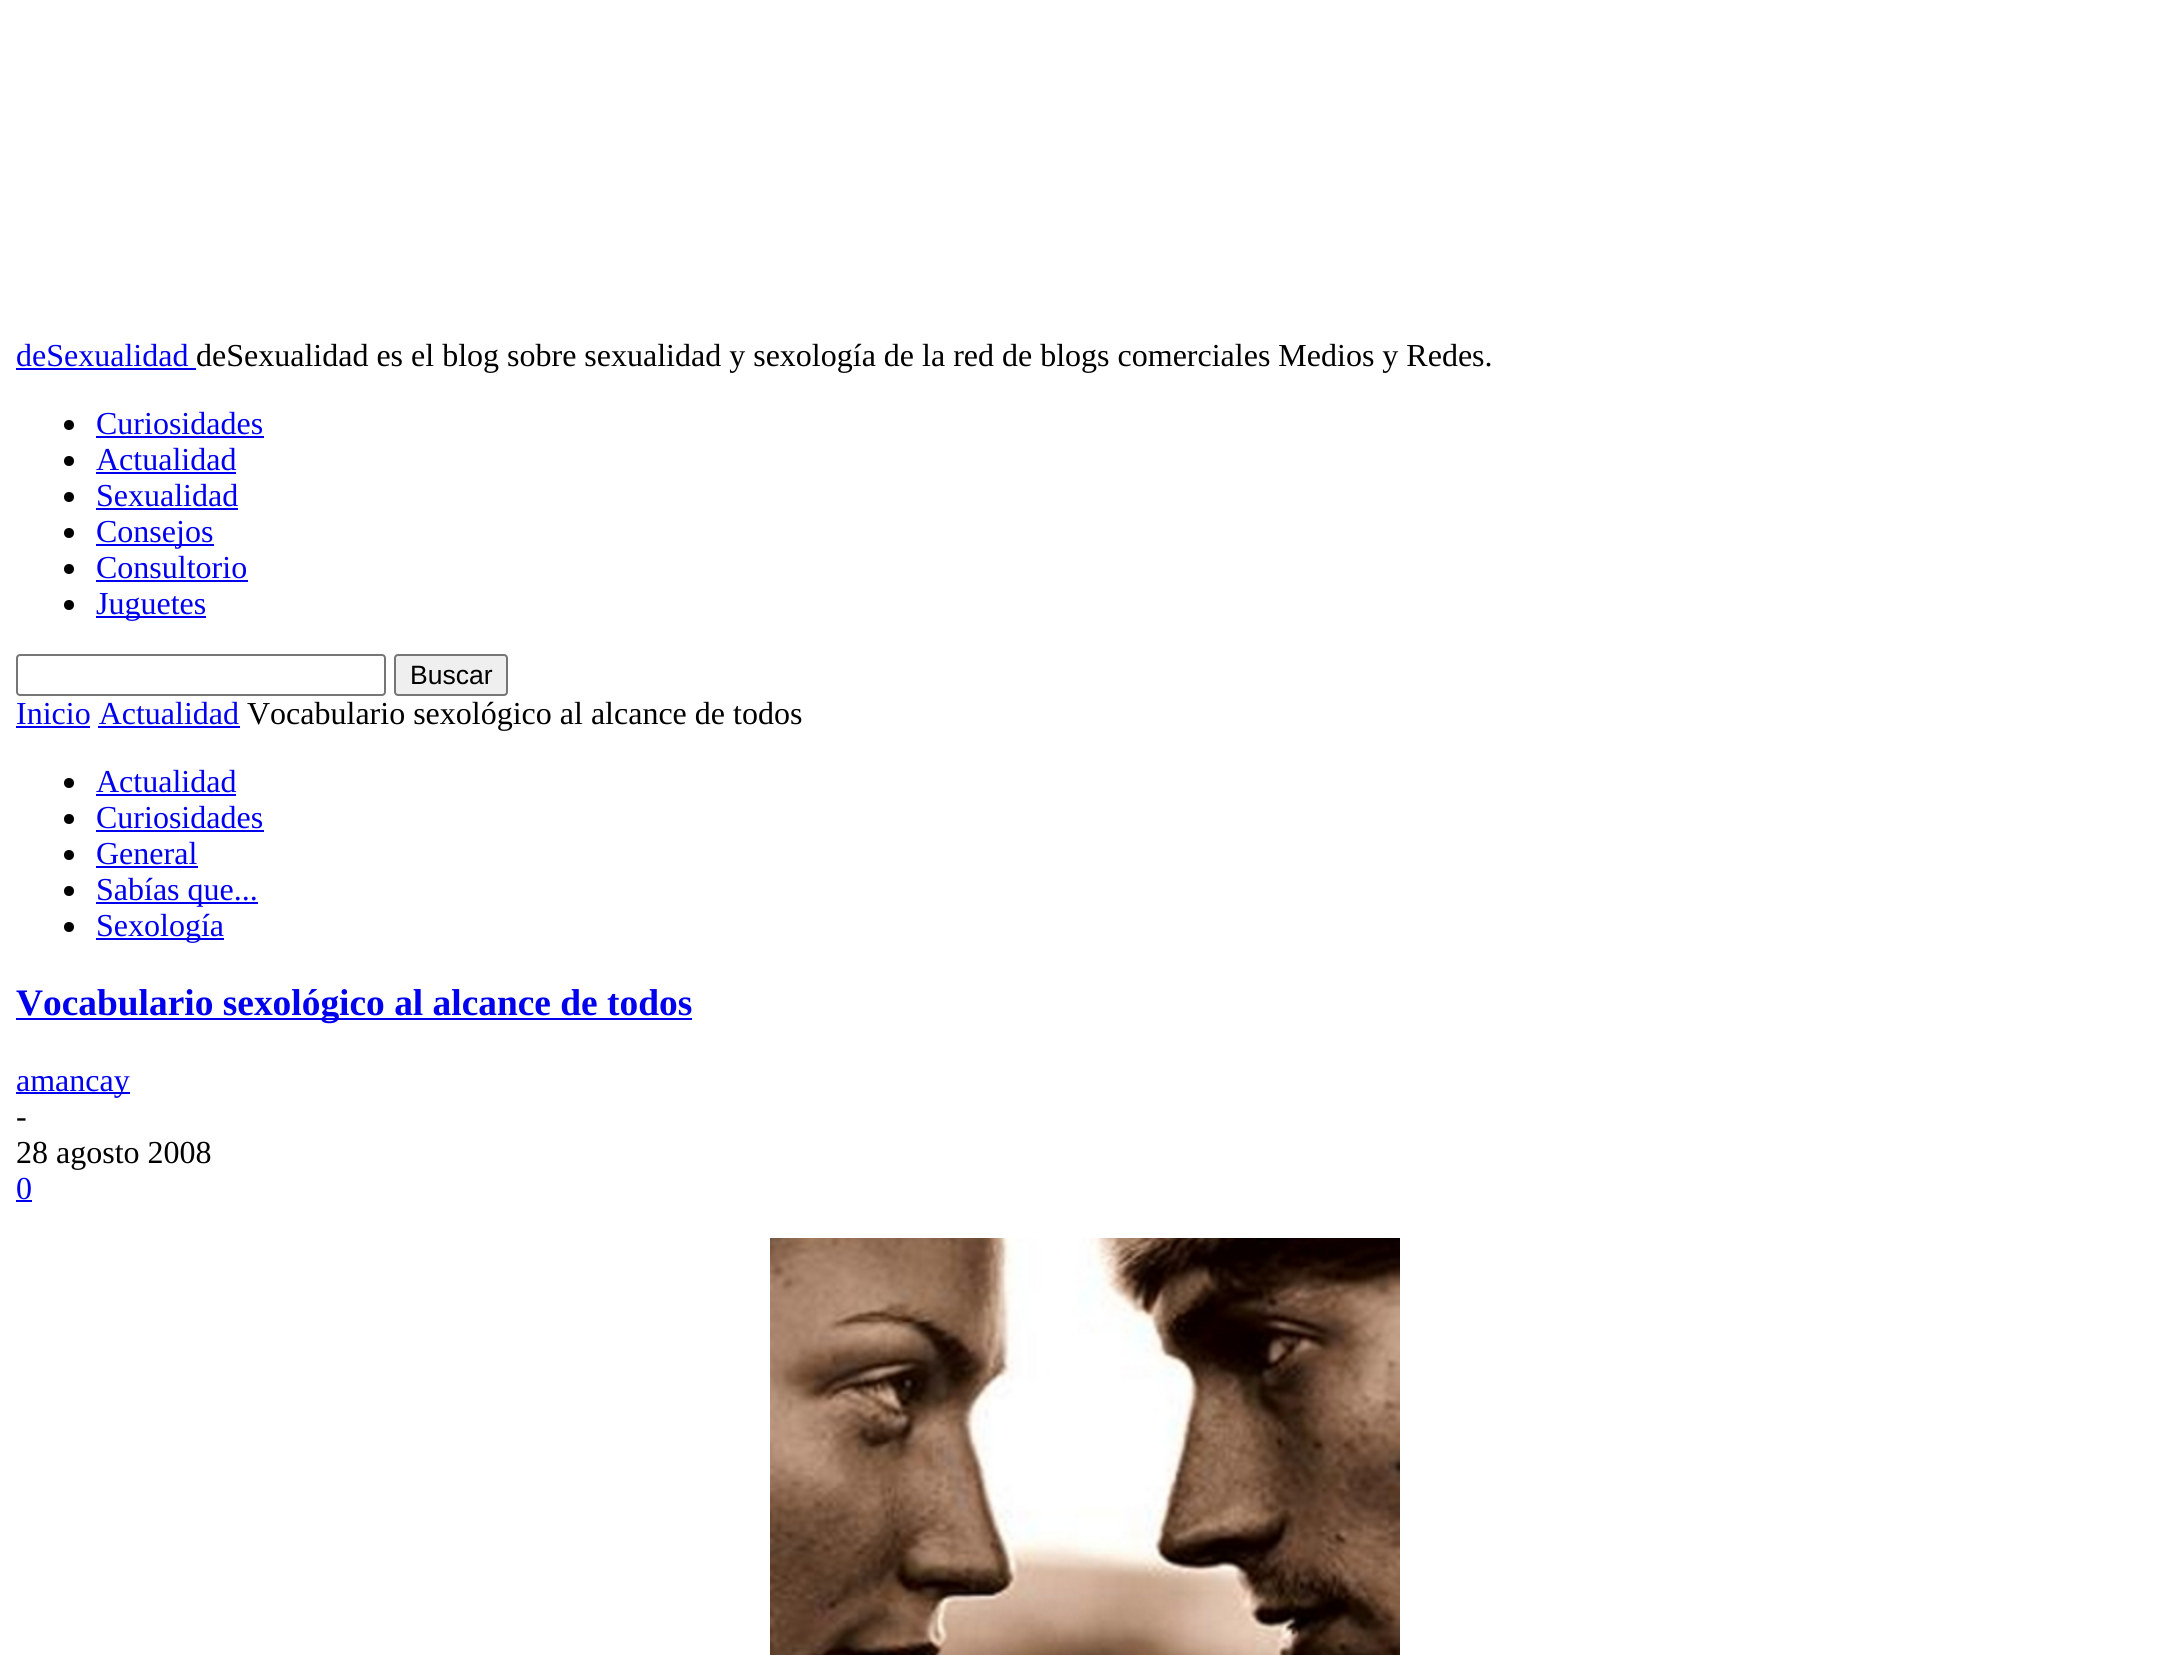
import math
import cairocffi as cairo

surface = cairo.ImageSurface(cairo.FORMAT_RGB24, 2167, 1655)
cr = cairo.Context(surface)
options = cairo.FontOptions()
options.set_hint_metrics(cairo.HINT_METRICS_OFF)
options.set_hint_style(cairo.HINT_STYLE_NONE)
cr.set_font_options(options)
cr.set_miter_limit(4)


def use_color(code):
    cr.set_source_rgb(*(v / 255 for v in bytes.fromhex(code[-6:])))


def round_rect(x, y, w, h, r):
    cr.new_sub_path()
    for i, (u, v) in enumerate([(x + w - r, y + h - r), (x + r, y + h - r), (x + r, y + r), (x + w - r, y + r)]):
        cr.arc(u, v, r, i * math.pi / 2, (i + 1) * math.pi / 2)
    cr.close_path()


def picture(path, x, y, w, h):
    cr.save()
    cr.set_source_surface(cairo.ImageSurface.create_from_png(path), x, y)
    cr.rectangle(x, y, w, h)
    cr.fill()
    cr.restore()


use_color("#ffffff")
cr.paint()
cr.select_font_face("Liberation Serif")
cr.set_font_size(32)
use_color("#0000ee")
cr.move_to(16, 366)
cr.show_text("deSexualidad")
cr.rectangle(16, 368, 180, 2)
cr.fill()
use_color("#000000")
cr.move_to(196, 366)
cr.show_text("deSexualidad es el blog sobre sexualidad y sexología de la red de blogs comerciales Medios y Redes.")
cr.new_path()
cr.arc(69, 425, 5, 0, 2 * math.pi)
cr.fill()
use_color("#0000ee")
cr.move_to(96, 434)
cr.show_text("Curiosidades")
cr.rectangle(96, 436, 168, 2)
cr.fill()
use_color("#000000")
cr.arc(69, 461, 5, 0, 2 * math.pi)
cr.fill()
use_color("#0000ee")
cr.move_to(96, 470)
cr.show_text("Actualidad")
cr.rectangle(96, 472, 140, 2)
cr.fill()
use_color("#000000")
cr.arc(69, 497, 5, 0, 2 * math.pi)
cr.fill()
use_color("#0000ee")
cr.move_to(96, 506)
cr.show_text("Sexualidad")
cr.rectangle(96, 508, 142, 2)
cr.fill()
use_color("#000000")
cr.arc(69, 533, 5, 0, 2 * math.pi)
cr.fill()
use_color("#0000ee")
cr.rectangle(96, 544, 118, 2)
cr.fill()
cr.move_to(96, 542)
cr.show_text("Consejos")
use_color("#000000")
cr.new_path()
cr.arc(69, 569, 5, 0, 2 * math.pi)
cr.fill()
use_color("#0000ee")
cr.move_to(96, 578)
cr.show_text("Consultorio")
cr.rectangle(96, 580, 152, 2)
cr.fill()
use_color("#000000")
cr.arc(69, 605, 5, 0, 2 * math.pi)
cr.fill()
use_color("#0000ee")
cr.rectangle(96, 616, 110, 2)
cr.fill()
cr.move_to(96, 614)
cr.show_text("Juguetes")
round_rect(17, 655, 368, 40, 3)
use_color("#767676")
cr.stroke()
use_color("#efefef")
round_rect(395, 655, 112, 40, 3)
cr.fill_preserve()
use_color("#767676")
cr.stroke()
cr.select_font_face("Liberation Sans")
cr.set_font_size(26.5)
use_color("#000000")
cr.move_to(410, 684)
cr.show_text("Buscar")
cr.select_font_face("Liberation Serif")
cr.set_font_size(32)
use_color("#0000ee")
cr.move_to(16, 724)
cr.show_text("Inicio Actualidad")
cr.rectangle(16, 726, 74, 2)
cr.fill()
use_color("#000000")
cr.move_to(247, 724)
cr.show_text("Vocabulario sexológico al alcance de todos")
use_color("#0000ee")
cr.rectangle(98, 726, 142, 2)
cr.fill()
use_color("#000000")
cr.arc(69, 783, 5, 0, 2 * math.pi)
cr.fill()
use_color("#0000ee")
cr.move_to(96, 792)
cr.show_text("Actualidad")
cr.rectangle(96, 794, 140, 2)
cr.fill()
use_color("#000000")
cr.arc(69, 819, 5, 0, 2 * math.pi)
cr.fill()
use_color("#0000ee")
cr.move_to(96, 828)
cr.show_text("Curiosidades")
cr.rectangle(96, 830, 168, 2)
cr.fill()
use_color("#000000")
cr.arc(69, 855, 5, 0, 2 * math.pi)
cr.fill()
use_color("#0000ee")
cr.move_to(96, 864)
cr.show_text("General")
cr.rectangle(96, 866, 102, 2)
cr.fill()
use_color("#000000")
cr.arc(69, 891, 5, 0, 2 * math.pi)
cr.fill()
use_color("#0000ee")
cr.rectangle(96, 902, 162, 2)
cr.fill()
cr.move_to(96, 900)
cr.show_text("Sabías que...")
use_color("#000000")
cr.new_path()
cr.arc(69, 927, 5, 0, 2 * math.pi)
cr.fill()
use_color("#0000ee")
cr.rectangle(96, 938, 128, 2)
cr.fill()
cr.move_to(96, 936)
cr.show_text("Sexología")
cr.rectangle(16, 1018, 676, 2)
cr.fill()
cr.select_font_face("Liberation Serif", cairo.FONT_SLANT_NORMAL, cairo.FONT_WEIGHT_BOLD)
cr.set_font_size(37.4)
cr.move_to(16, 1015)
cr.show_text("Vocabulario sexológico al alcance de todos")
cr.rectangle(16, 1092, 114, 2)
cr.fill()
cr.select_font_face("Liberation Serif")
cr.set_font_size(32)
cr.move_to(16, 1091)
cr.show_text("amancay")
use_color("#000000")
cr.move_to(16, 1127)
cr.show_text("-")
cr.move_to(16, 1163)
cr.show_text("28 agosto 2008")
use_color("#0000ee")
cr.move_to(16, 1199)
cr.show_text("0")
cr.rectangle(16, 1200, 16, 2)
cr.fill()
picture("img1.png", 770, 1238, 630, 417)
surface.write_to_png("result.png")
